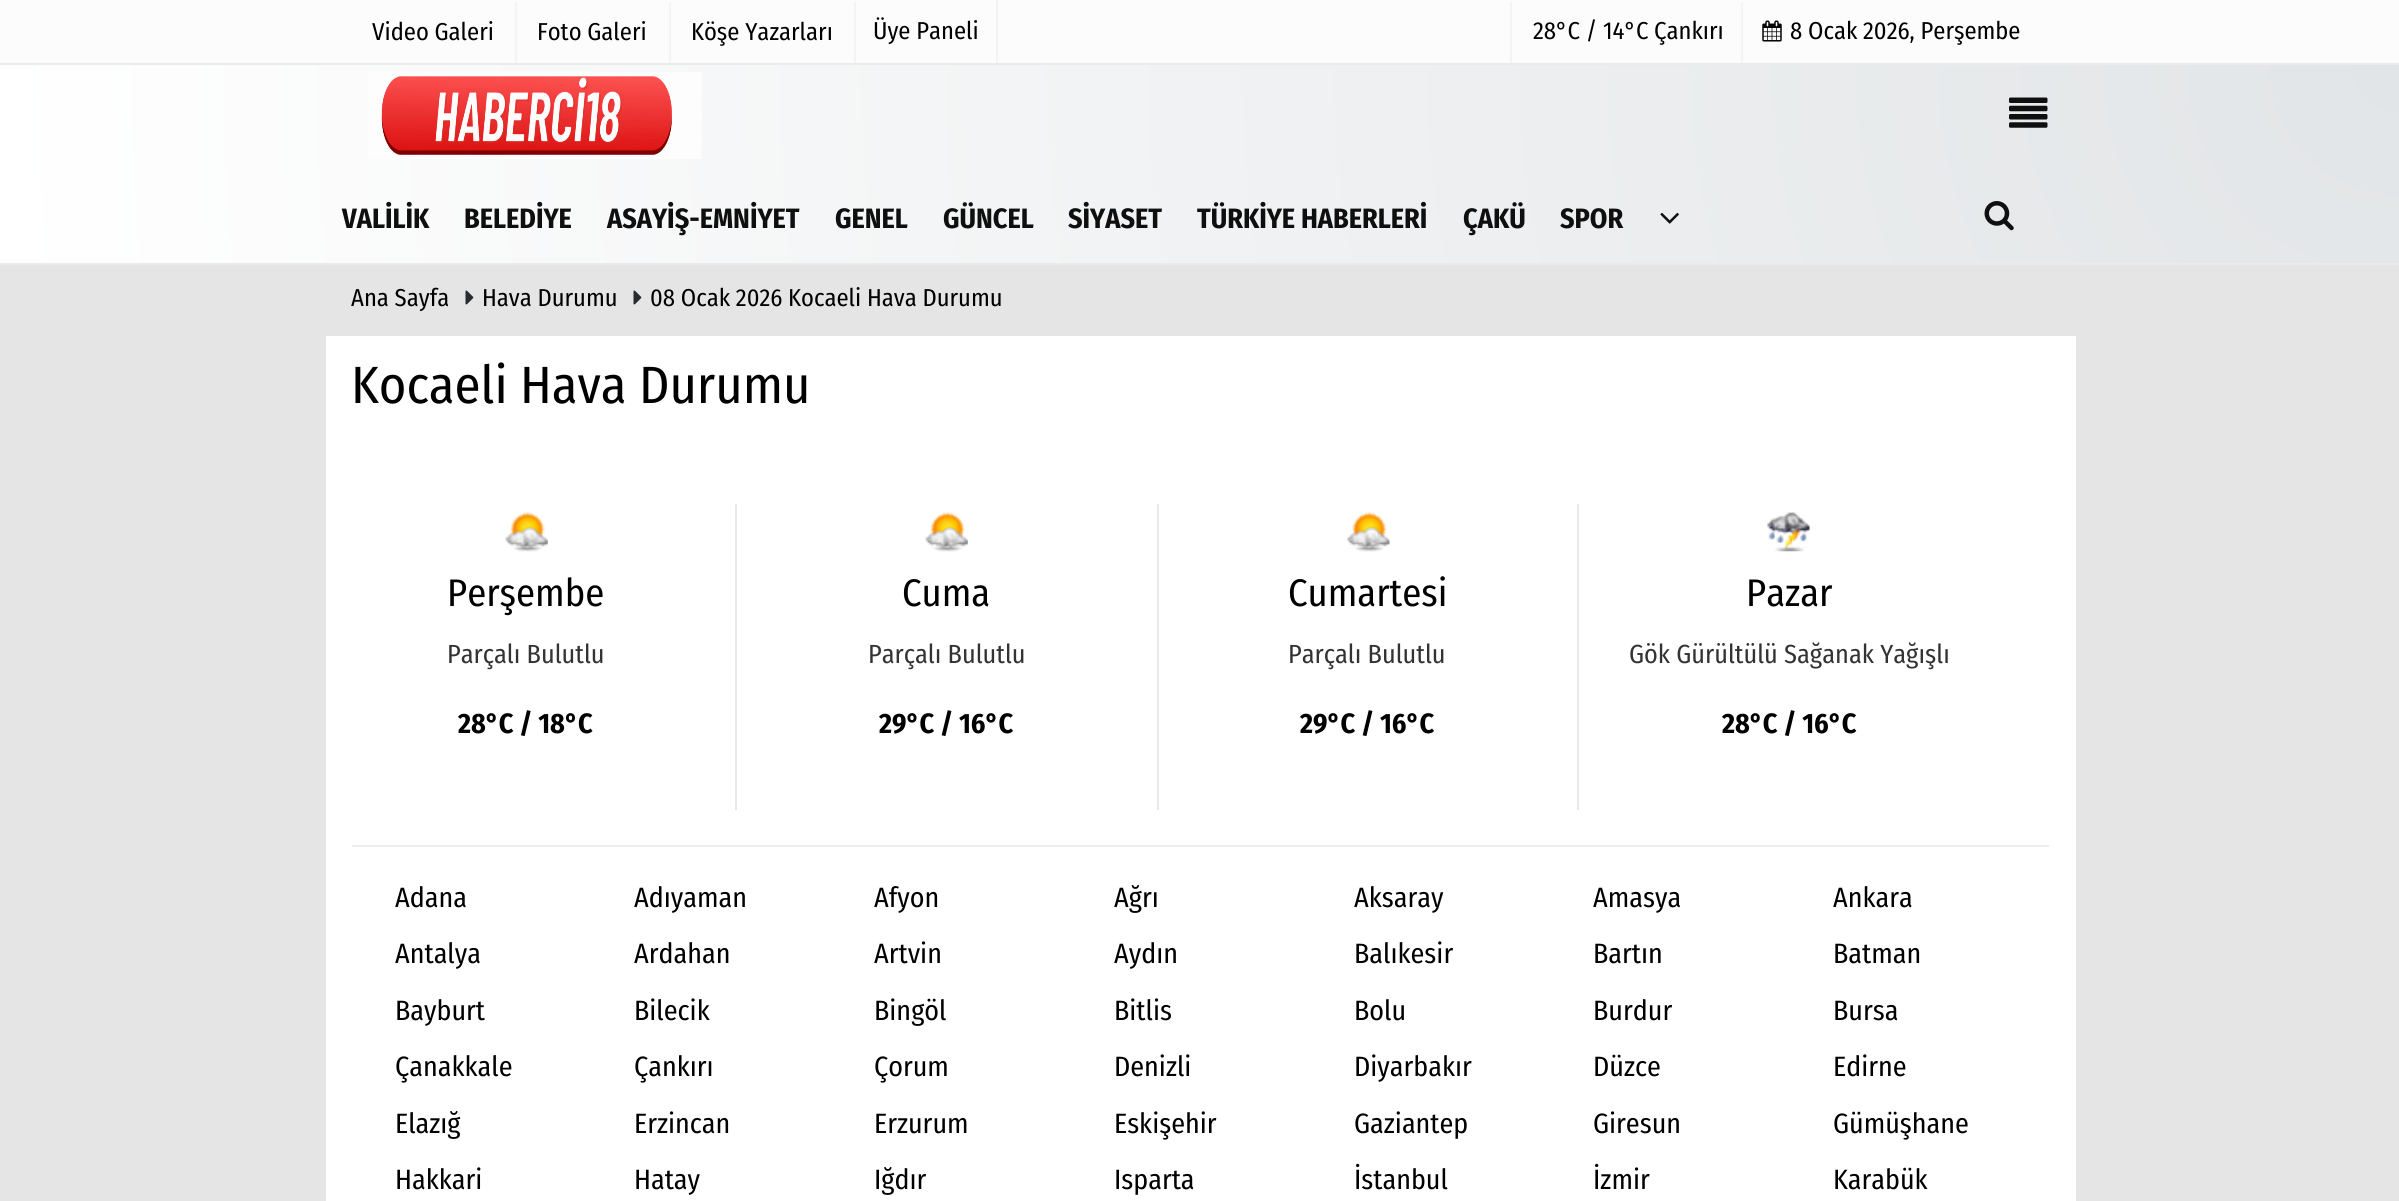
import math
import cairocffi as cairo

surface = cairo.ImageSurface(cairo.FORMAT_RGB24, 2399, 1201)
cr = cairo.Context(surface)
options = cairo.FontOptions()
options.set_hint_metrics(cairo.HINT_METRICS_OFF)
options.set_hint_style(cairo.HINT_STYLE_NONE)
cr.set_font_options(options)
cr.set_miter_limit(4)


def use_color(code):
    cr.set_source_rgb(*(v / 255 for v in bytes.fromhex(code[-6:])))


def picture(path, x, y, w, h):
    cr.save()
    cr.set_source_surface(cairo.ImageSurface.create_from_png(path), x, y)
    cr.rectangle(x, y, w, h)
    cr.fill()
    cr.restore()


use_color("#e5e5e5")
cr.paint()
use_color("#fcfcfc")
cr.rectangle(0, 0, 2399, 63)
cr.fill()
use_color("#f4f4f4")
cr.rectangle(854, 2, 2, 61)
cr.fill()
cr.rectangle(669, 2, 2, 61)
cr.fill()
cr.rectangle(515, 2, 2, 61)
cr.fill()
cr.select_font_face("Fira Sans Condensed")
cr.set_font_size(24.5)
use_color("#000000")
cr.move_to(372, 40)
cr.show_text("Video Galeri")
cr.move_to(537, 40)
cr.show_text("Foto Galeri")
cr.move_to(691, 40)
cr.show_text("Köşe Yazarları")
use_color("#f4f4f4")
cr.rectangle(996, 0, 2, 63)
cr.fill()
use_color("#000000")
cr.move_to(873, 39)
cr.show_text("Üye Paneli")
use_color("#f4f4f4")
cr.rectangle(1741, 2, 2, 61)
cr.fill()
cr.rectangle(1510, 2, 2, 61)
cr.fill()
use_color("#000000")
cr.move_to(1533, 39)
cr.show_text("28°C / 14°C Çankırı")
picture("img1.png", 1762, 20, 20, 22)
cr.move_to(1790, 39)
cr.show_text("8 Ocak 2026, Perşembe")
gradient = cairo.RadialGradient(2399, 65, 0, 2399, 65, 2407)
gradient.add_color_stop_rgba(0, 0.886, 0.898, 0.906, 1)
gradient.add_color_stop_rgba(1, 1, 1, 1, 1)
cr.set_source(gradient)
cr.rectangle(0, 65, 2399, 198)
cr.fill()
use_color("#ebebeb")
cr.rectangle(0, 63, 2399, 2)
cr.fill()
cr.rectangle(0, 263, 2399, 2)
cr.fill()
picture("img2.png", 368, 72, 334, 87)
picture("img3.png", 2009, 97, 39, 31)
cr.select_font_face("Fira Sans Condensed", cairo.FONT_SLANT_NORMAL, cairo.FONT_WEIGHT_BOLD)
cr.set_font_size(28)
use_color("#0f0f0f")
cr.move_to(342, 228)
cr.show_text("VALİLİK")
cr.move_to(464, 228)
cr.show_text("BELEDİYE")
cr.move_to(607, 228)
cr.show_text("ASAYİŞ-EMNİYET")
cr.move_to(835, 228)
cr.show_text("GENEL")
cr.move_to(943, 228)
cr.show_text("GÜNCEL")
cr.move_to(1068, 228)
cr.show_text("SİYASET")
cr.move_to(1197, 228)
cr.show_text("TÜRKİYE HABERLERİ")
cr.move_to(1463, 228)
cr.show_text("ÇAKÜ")
cr.move_to(1560, 228)
cr.show_text("SPOR")
picture("img4.png", 1660, 212, 19, 12)
picture("img5.png", 1984, 201, 30, 30)
cr.select_font_face("Fira Sans Condensed")
cr.set_font_size(24.5)
use_color("#000000")
cr.move_to(351, 306)
cr.show_text("Ana Sayfa")
picture("img6.png", 465, 290, 9, 15)
cr.move_to(482, 306)
cr.show_text("Hava Durumu")
picture("img6.png", 633, 290, 9, 15)
cr.move_to(650, 306)
cr.show_text("08 Ocak 2026 Kocaeli Hava Durumu")
use_color("#ffffff")
cr.rectangle(326, 336, 1750, 865)
cr.fill()
cr.set_font_size(52.5)
use_color("#000000")
cr.move_to(351, 403)
cr.show_text("Kocaeli Hava Durumu")
use_color("#e8e8e8")
cr.rectangle(735, 504, 2, 306)
cr.fill()
picture("img7.png", 505, 512, 43, 40)
cr.set_font_size(38.5)
use_color("#000000")
cr.move_to(447, 606)
cr.show_text("Perşembe")
cr.set_font_size(26.25)
use_color("#333333")
cr.move_to(447, 663)
cr.show_text("Parçalı Bulutlu")
cr.select_font_face("Fira Sans Condensed", cairo.FONT_SLANT_NORMAL, cairo.FONT_WEIGHT_BOLD)
cr.set_font_size(28)
use_color("#000000")
cr.move_to(458, 733)
cr.show_text("28°C / 18°C")
use_color("#e8e8e8")
cr.rectangle(1157, 504, 2, 306)
cr.fill()
picture("img8.png", 925, 512, 43, 40)
cr.select_font_face("Fira Sans Condensed")
cr.set_font_size(38.5)
use_color("#000000")
cr.move_to(902, 606)
cr.show_text("Cuma")
cr.set_font_size(26.25)
use_color("#333333")
cr.move_to(868, 663)
cr.show_text("Parçalı Bulutlu")
cr.select_font_face("Fira Sans Condensed", cairo.FONT_SLANT_NORMAL, cairo.FONT_WEIGHT_BOLD)
cr.set_font_size(28)
use_color("#000000")
cr.move_to(879, 733)
cr.show_text("29°C / 16°C")
use_color("#e8e8e8")
cr.rectangle(1577, 504, 2, 306)
cr.fill()
picture("img9.png", 1347, 512, 43, 40)
cr.select_font_face("Fira Sans Condensed")
cr.set_font_size(38.5)
use_color("#000000")
cr.move_to(1288, 606)
cr.show_text("Cumartesi")
cr.set_font_size(26.25)
use_color("#333333")
cr.move_to(1288, 663)
cr.show_text("Parçalı Bulutlu")
cr.select_font_face("Fira Sans Condensed", cairo.FONT_SLANT_NORMAL, cairo.FONT_WEIGHT_BOLD)
cr.set_font_size(28)
use_color("#000000")
cr.move_to(1300, 733)
cr.show_text("29°C / 16°C")
picture("img10.png", 1767, 512, 43, 40)
cr.select_font_face("Fira Sans Condensed")
cr.set_font_size(38.5)
cr.move_to(1746, 606)
cr.show_text("Pazar")
cr.set_font_size(26.25)
use_color("#333333")
cr.move_to(1629, 663)
cr.show_text("Gök Gürültülü Sağanak Yağışlı")
cr.select_font_face("Fira Sans Condensed", cairo.FONT_SLANT_NORMAL, cairo.FONT_WEIGHT_BOLD)
cr.set_font_size(28)
use_color("#000000")
cr.move_to(1722, 733)
cr.show_text("28°C / 16°C")
use_color("#eeeeee")
cr.rectangle(352, 845, 1697, 2)
cr.fill()
cr.select_font_face("Fira Sans Condensed")
use_color("#000000")
cr.move_to(395, 907)
cr.show_text("Adana")
cr.move_to(634, 907)
cr.show_text("Adıyaman")
cr.move_to(874, 907)
cr.show_text("Afyon")
cr.move_to(1114, 907)
cr.show_text("Ağrı")
cr.move_to(1354, 907)
cr.show_text("Aksaray")
cr.move_to(1593, 907)
cr.show_text("Amasya")
cr.move_to(1833, 907)
cr.show_text("Ankara")
cr.move_to(395, 963)
cr.show_text("Antalya")
cr.move_to(634, 963)
cr.show_text("Ardahan")
cr.move_to(874, 963)
cr.show_text("Artvin")
cr.move_to(1114, 963)
cr.show_text("Aydın")
cr.move_to(1354, 963)
cr.show_text("Balıkesir")
cr.move_to(1593, 963)
cr.show_text("Bartın")
cr.move_to(1833, 963)
cr.show_text("Batman")
cr.move_to(395, 1020)
cr.show_text("Bayburt")
cr.move_to(634, 1020)
cr.show_text("Bilecik")
cr.move_to(874, 1020)
cr.show_text("Bingöl")
cr.move_to(1114, 1020)
cr.show_text("Bitlis")
cr.move_to(1354, 1020)
cr.show_text("Bolu")
cr.move_to(1593, 1020)
cr.show_text("Burdur")
cr.move_to(1833, 1020)
cr.show_text("Bursa")
cr.move_to(395, 1076)
cr.show_text("Çanakkale")
cr.move_to(634, 1076)
cr.show_text("Çankırı")
cr.move_to(874, 1076)
cr.show_text("Çorum")
cr.move_to(1114, 1076)
cr.show_text("Denizli")
cr.move_to(1354, 1076)
cr.show_text("Diyarbakır")
cr.move_to(1593, 1076)
cr.show_text("Düzce")
cr.move_to(1833, 1076)
cr.show_text("Edirne")
cr.move_to(395, 1133)
cr.show_text("Elazığ")
cr.move_to(634, 1133)
cr.show_text("Erzincan")
cr.move_to(874, 1133)
cr.show_text("Erzurum")
cr.move_to(1114, 1133)
cr.show_text("Eskişehir")
cr.move_to(1354, 1133)
cr.show_text("Gaziantep")
cr.move_to(1593, 1133)
cr.show_text("Giresun")
cr.move_to(1833, 1133)
cr.show_text("Gümüşhane")
cr.move_to(395, 1189)
cr.show_text("Hakkari")
cr.move_to(634, 1189)
cr.show_text("Hatay")
cr.move_to(874, 1189)
cr.show_text("Iğdır")
cr.move_to(1114, 1189)
cr.show_text("Isparta")
cr.move_to(1354, 1189)
cr.show_text("İstanbul")
cr.move_to(1593, 1189)
cr.show_text("İzmir")
cr.move_to(1833, 1189)
cr.show_text("Karabük")
surface.write_to_png("result.png")
